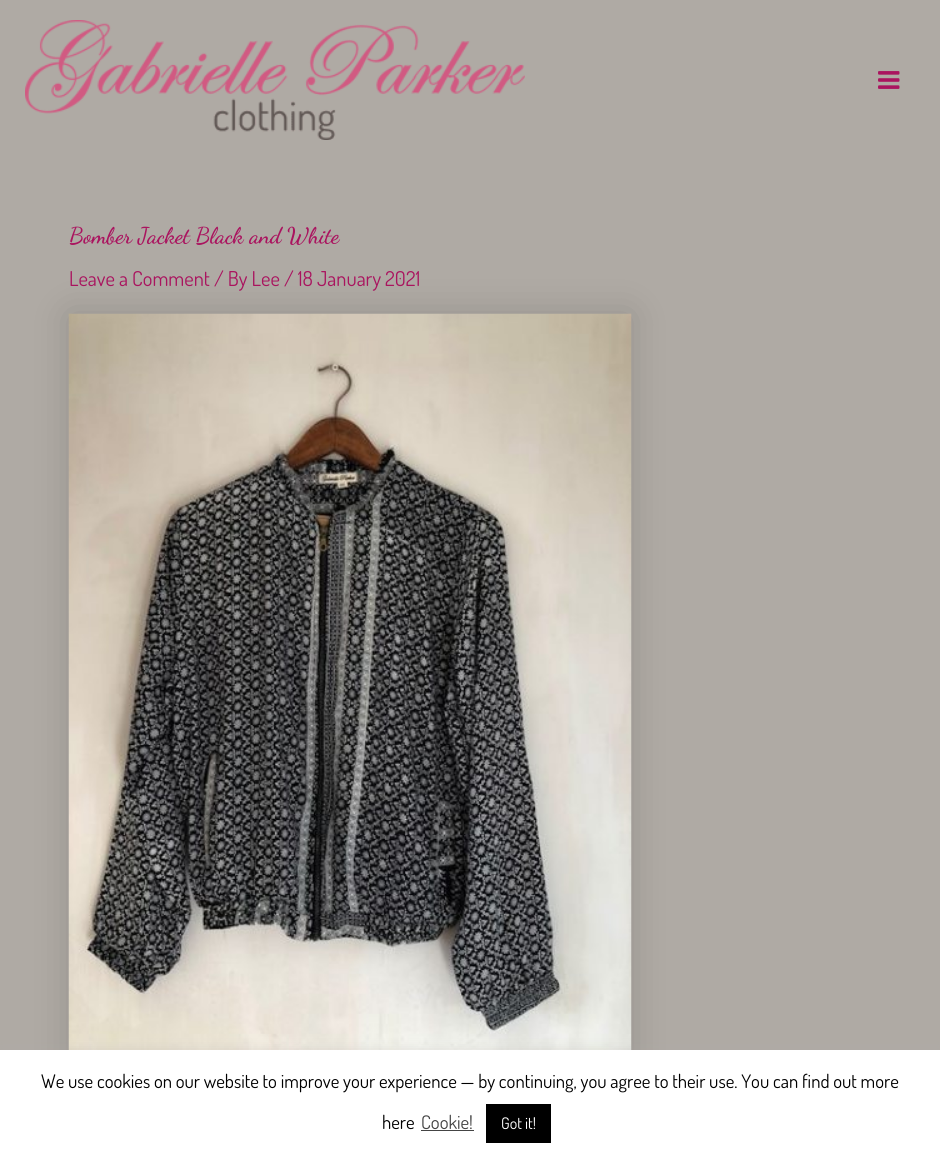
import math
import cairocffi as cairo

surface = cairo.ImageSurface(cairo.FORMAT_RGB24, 940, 1163)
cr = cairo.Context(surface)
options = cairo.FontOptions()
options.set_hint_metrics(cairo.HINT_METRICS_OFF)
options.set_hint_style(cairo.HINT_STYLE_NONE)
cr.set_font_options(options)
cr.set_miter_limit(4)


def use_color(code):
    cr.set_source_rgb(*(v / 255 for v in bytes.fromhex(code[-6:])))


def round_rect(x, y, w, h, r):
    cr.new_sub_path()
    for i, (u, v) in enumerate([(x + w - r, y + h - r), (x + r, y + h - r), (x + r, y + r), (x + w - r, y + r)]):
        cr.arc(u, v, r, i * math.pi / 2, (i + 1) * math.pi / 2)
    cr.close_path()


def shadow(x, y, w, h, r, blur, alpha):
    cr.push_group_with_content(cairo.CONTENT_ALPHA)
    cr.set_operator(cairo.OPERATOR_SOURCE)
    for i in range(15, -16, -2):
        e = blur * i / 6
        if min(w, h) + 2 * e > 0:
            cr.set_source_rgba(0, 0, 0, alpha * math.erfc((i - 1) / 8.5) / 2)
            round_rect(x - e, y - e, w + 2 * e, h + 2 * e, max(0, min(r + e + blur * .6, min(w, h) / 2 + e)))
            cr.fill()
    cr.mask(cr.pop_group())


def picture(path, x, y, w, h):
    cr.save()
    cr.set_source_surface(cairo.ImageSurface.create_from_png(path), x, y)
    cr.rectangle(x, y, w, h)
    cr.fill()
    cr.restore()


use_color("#afaaa4")
cr.paint()
picture("img1.png", 25, 20, 500, 120)
picture("img2.png", 878, 71, 22, 18)
cr.select_font_face("Dancing Script SemiBold")
cr.set_font_size(22.75)
use_color("#aa145f")
cr.move_to(69, 243)
cr.show_text("Bomber Jacket Black and White")
cr.select_font_face("Dosis")
cr.set_font_size(20.5)
cr.move_to(69, 286)
cr.show_text("Leave a Comment / By Lee / 18 January 2021")
use_color("#000000")
shadow(69, 314, 562, 750, 0, 19, 0.15)
picture("img3.png", 68, 313, 564, 737)
use_color("#acabab")
shadow(0, 1049, 940, 114, 0, 6, 0.3)
use_color("#ffffff")
cr.rectangle(0, 1050, 940, 113)
cr.fill()
cr.set_font_size(18.75)
use_color("#000000")
cr.move_to(41, 1088)
cr.show_text("We use cookies on our website to improve your experience — by continuing, you agree to their use. You can find out more")
cr.move_to(382, 1129)
cr.show_text("here")
use_color("#444444")
cr.move_to(421, 1129)
cr.show_text("Cookie!")
cr.rectangle(421, 1130, 53, 1)
cr.fill()
use_color("#000000")
cr.rectangle(486, 1104, 65, 39)
cr.fill()
cr.set_font_size(16)
use_color("#ffffff")
cr.move_to(501, 1129)
cr.show_text("Got it!")
surface.write_to_png("result.png")
